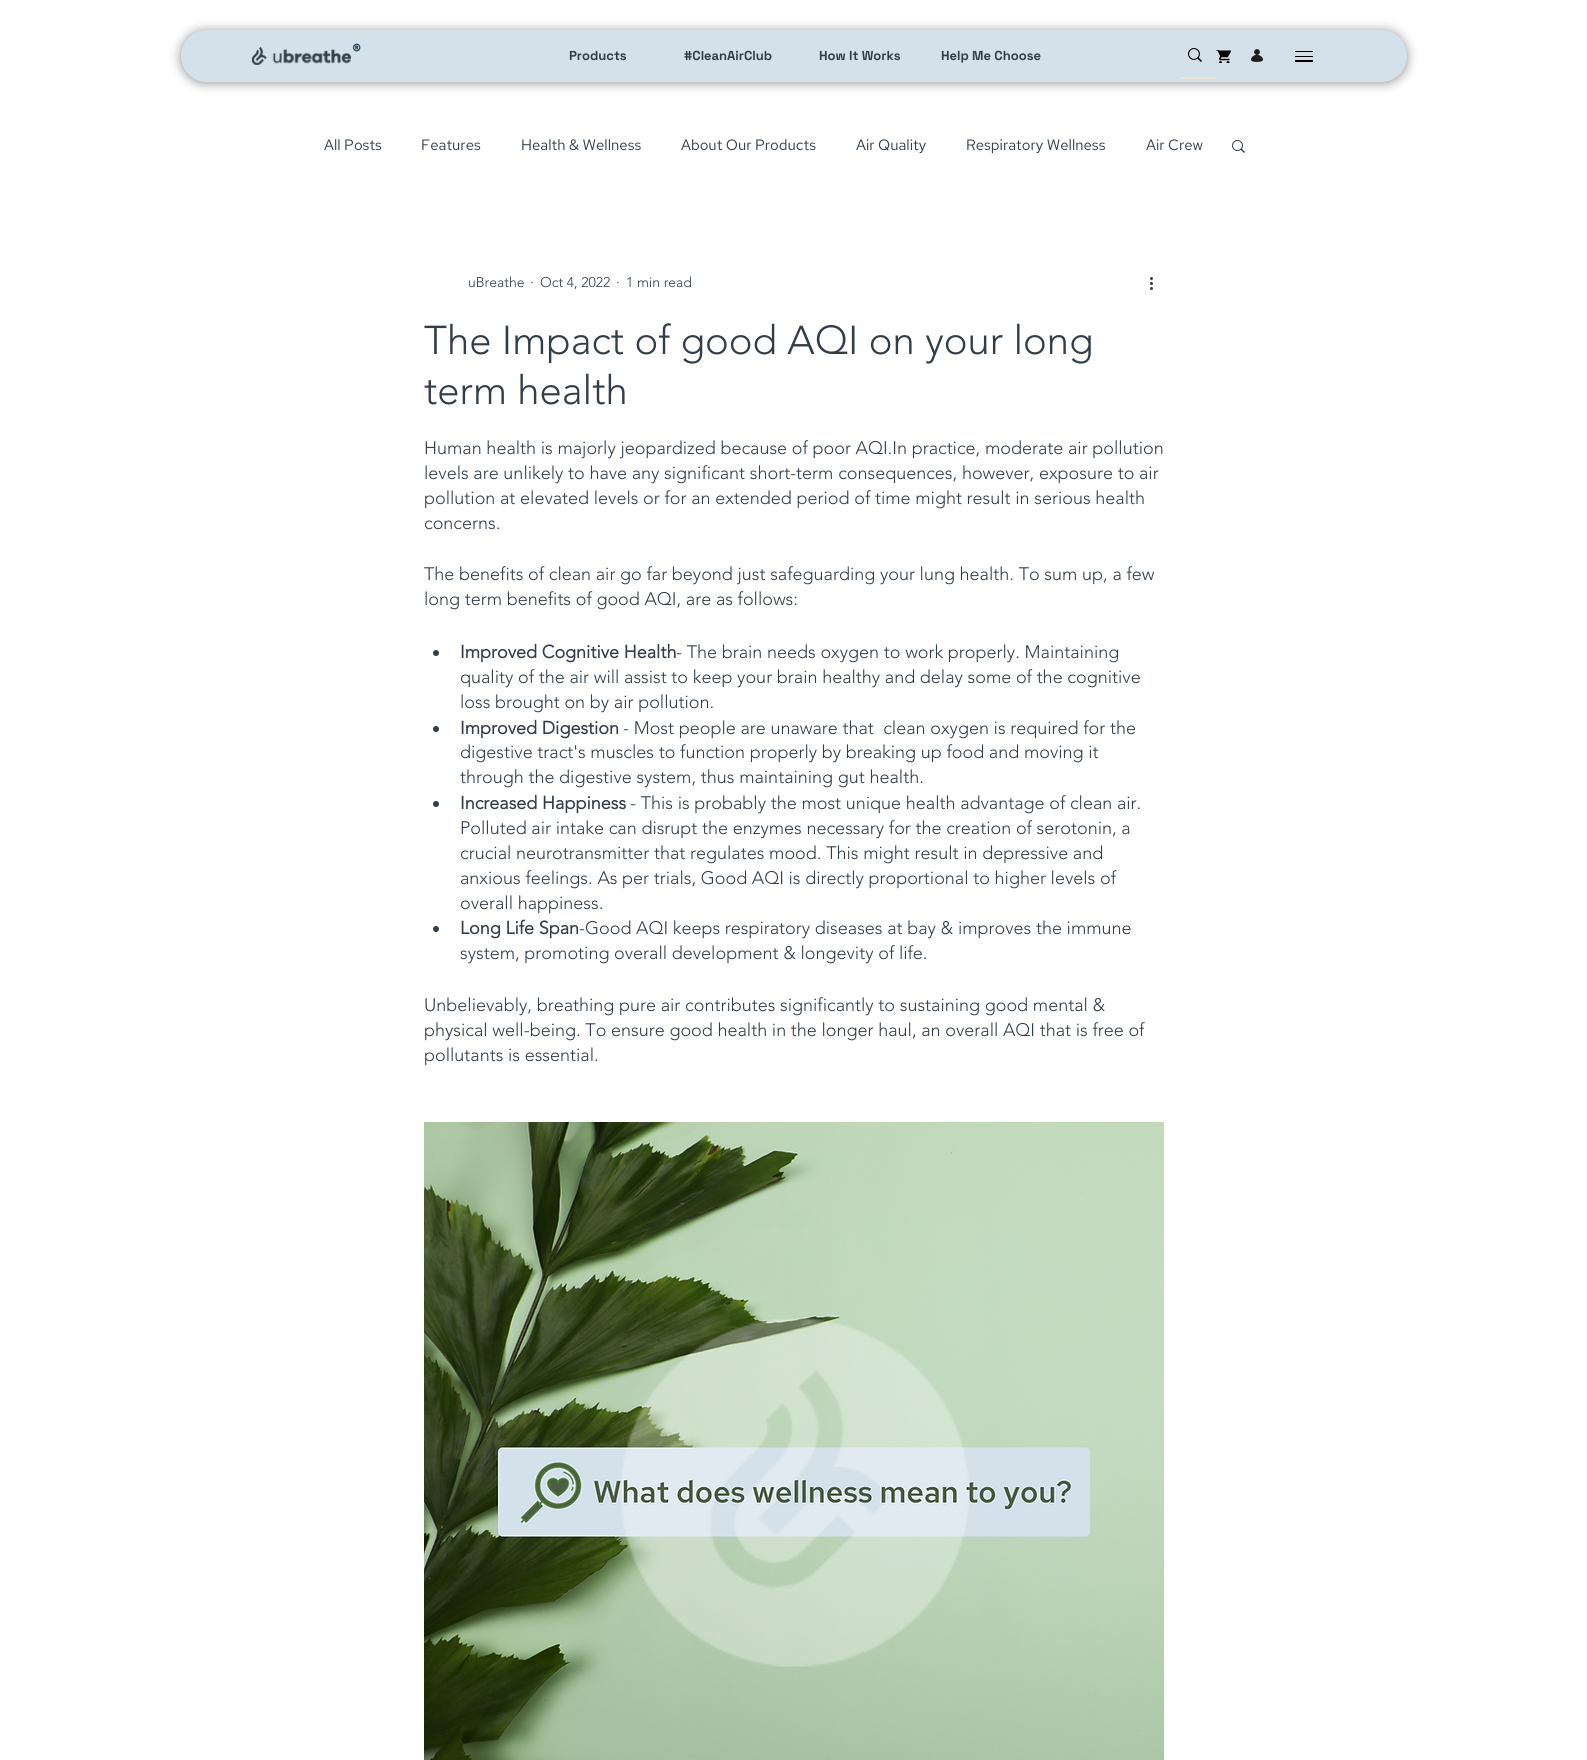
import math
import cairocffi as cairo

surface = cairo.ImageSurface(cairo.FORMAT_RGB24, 1587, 1760)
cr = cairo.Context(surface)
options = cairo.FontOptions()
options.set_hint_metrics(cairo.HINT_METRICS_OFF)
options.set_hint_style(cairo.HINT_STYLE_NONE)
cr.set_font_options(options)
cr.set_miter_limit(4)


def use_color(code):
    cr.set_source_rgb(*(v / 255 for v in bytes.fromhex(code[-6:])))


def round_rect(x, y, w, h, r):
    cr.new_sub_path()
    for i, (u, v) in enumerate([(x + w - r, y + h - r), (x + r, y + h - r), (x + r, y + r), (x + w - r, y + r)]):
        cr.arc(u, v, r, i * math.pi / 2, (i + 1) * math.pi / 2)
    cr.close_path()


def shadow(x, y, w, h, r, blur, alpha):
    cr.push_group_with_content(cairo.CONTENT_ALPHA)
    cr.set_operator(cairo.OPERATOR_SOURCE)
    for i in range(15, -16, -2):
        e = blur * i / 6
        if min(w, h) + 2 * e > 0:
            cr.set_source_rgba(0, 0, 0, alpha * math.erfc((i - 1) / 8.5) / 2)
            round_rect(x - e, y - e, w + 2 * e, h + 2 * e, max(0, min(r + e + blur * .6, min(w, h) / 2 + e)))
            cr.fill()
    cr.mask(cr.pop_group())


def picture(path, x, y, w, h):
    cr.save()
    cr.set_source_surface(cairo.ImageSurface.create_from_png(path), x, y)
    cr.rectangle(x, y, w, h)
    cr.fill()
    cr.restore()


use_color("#ffffff")
cr.paint()
use_color("#000000")
shadow(181, 31, 1226, 52, 26, 5.5, 0.43)
use_color("#d5e1ea")
round_rect(181, 30, 1226, 52, 26)
cr.fill()
picture("img1.png", 252, 47, 99, 18)
cr.select_font_face("Red Hat Text", cairo.FONT_SLANT_NORMAL, cairo.FONT_WEIGHT_BOLD)
cr.set_font_size(18)
use_color("#18384a")
cr.move_to(352, 57)
cr.show_text("®")
cr.select_font_face("Space Grotesk", cairo.FONT_SLANT_NORMAL, cairo.FONT_WEIGHT_BOLD)
cr.set_font_size(13)
use_color("#313d48")
cr.move_to(569, 60)
cr.show_text("Products")
cr.move_to(684, 60)
cr.show_text("#CleanAirClub")
cr.move_to(819, 60)
cr.show_text("How It Works")
cr.move_to(941, 60)
cr.show_text("Help Me Choose")
picture("img2.png", 1216, 50, 15, 13)
picture("img3.png", 1251, 49, 12, 13)
use_color("#ebe5d6")
cr.rectangle(1181, 77, 35, 2)
cr.fill()
picture("img4.png", 1188, 48, 14, 14)
use_color("#000000")
cr.rectangle(1295, 60, 18, 2)
cr.fill()
cr.rectangle(1295, 51, 18, 1)
cr.fill()
cr.rectangle(1295, 56, 18, 1)
cr.fill()
cr.select_font_face("Red Hat Text")
cr.set_font_size(15)
use_color("#313d48")
cr.move_to(324, 150)
cr.show_text("All Posts")
cr.move_to(421, 150)
cr.show_text("Features")
cr.move_to(521, 150)
cr.show_text("Health & Wellness")
cr.move_to(681, 150)
cr.show_text("About Our Products")
cr.move_to(856, 150)
cr.show_text("Air Quality")
cr.move_to(966, 150)
cr.show_text("Respiratory Wellness")
cr.move_to(1146, 150)
cr.show_text("Air Crew")
picture("img5.png", 1232, 140, 13, 13)
cr.select_font_face("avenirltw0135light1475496 Light")
cr.set_font_size(14)
cr.move_to(468, 287)
cr.show_text("uBreathe")
cr.move_to(530, 287)
cr.show_text("·")
cr.move_to(540, 287)
cr.show_text("Oct 4, 2022")
cr.move_to(616, 287)
cr.show_text("·")
cr.move_to(626, 287)
cr.show_text("1 min read")
picture("img6.png", 1150, 277, 3, 13)
cr.set_font_size(40)
cr.move_to(424, 354)
cr.show_text("The Impact of good AQI on your long")
cr.move_to(424, 404)
cr.show_text("term health")
cr.set_font_size(18)
cr.move_to(424, 454)
cr.show_text("Human health is majorly jeopardized because of poor AQI.In practice, moderate air pollution")
cr.move_to(424, 479)
cr.show_text("levels are unlikely to have any significant short-term consequences, however, exposure to air")
cr.move_to(424, 504)
cr.show_text("pollution at elevated levels or for an extended period of time might result in serious health")
cr.move_to(424, 529)
cr.show_text("concerns.")
cr.move_to(424, 580)
cr.show_text("The benefits of clean air go far beyond just safeguarding your lung health. To sum up, a few")
cr.move_to(424, 605)
cr.show_text("long term benefits of good AQI, are as follows:")
cr.new_path()
cr.arc(436, 653, 3, 0, 2 * math.pi)
cr.fill()
cr.select_font_face("avenirltw0135light1475496", cairo.FONT_SLANT_NORMAL, cairo.FONT_WEIGHT_BOLD)
cr.move_to(460, 658)
cr.show_text("Improved Cognitive Health")
cr.select_font_face("avenirltw0135light1475496 Light")
cr.move_to(676, 658)
cr.show_text("- The brain needs oxygen to work properly. Maintaining")
cr.move_to(460, 683)
cr.show_text("quality of the air will assist to keep your brain healthy and delay some of the cognitive")
cr.move_to(460, 708)
cr.show_text("loss brought on by air pollution.")
cr.new_path()
cr.arc(436, 729, 3, 0, 2 * math.pi)
cr.fill()
cr.select_font_face("avenirltw0135light1475496", cairo.FONT_SLANT_NORMAL, cairo.FONT_WEIGHT_BOLD)
cr.move_to(460, 734)
cr.show_text("Improved Digestion")
cr.select_font_face("avenirltw0135light1475496 Light")
cr.move_to(623, 734)
cr.show_text("- Most people are unaware that  clean oxygen is required for the")
cr.move_to(460, 758)
cr.show_text("digestive tract's muscles to function properly by breaking up food and moving it")
cr.move_to(460, 783)
cr.show_text("through the digestive system, thus maintaining gut health.")
cr.new_path()
cr.arc(436, 804, 3, 0, 2 * math.pi)
cr.fill()
cr.select_font_face("avenirltw0135light1475496", cairo.FONT_SLANT_NORMAL, cairo.FONT_WEIGHT_BOLD)
cr.move_to(460, 809)
cr.show_text("Increased Happiness")
cr.select_font_face("avenirltw0135light1475496 Light")
cr.move_to(630, 809)
cr.show_text("- This is probably the most unique health advantage of clean air.")
cr.move_to(460, 834)
cr.show_text("Polluted air intake can disrupt the enzymes necessary for the creation of serotonin, a")
cr.move_to(460, 859)
cr.show_text("crucial neurotransmitter that regulates mood. This might result in depressive and")
cr.move_to(460, 884)
cr.show_text("anxious feelings. As per trials, Good AQI is directly proportional to higher levels of")
cr.move_to(460, 909)
cr.show_text("overall happiness.")
cr.new_path()
cr.arc(436, 929, 3, 0, 2 * math.pi)
cr.fill()
cr.select_font_face("avenirltw0135light1475496", cairo.FONT_SLANT_NORMAL, cairo.FONT_WEIGHT_BOLD)
cr.move_to(460, 934)
cr.show_text("Long Life Span")
cr.select_font_face("avenirltw0135light1475496 Light")
cr.move_to(579, 934)
cr.show_text("-Good AQI keeps respiratory diseases at bay & improves the immune")
cr.move_to(460, 959)
cr.show_text("system, promoting overall development & longevity of life.")
cr.move_to(424, 1011)
cr.show_text("Unbelievably, breathing pure air contributes significantly to sustaining good mental &")
cr.move_to(424, 1036)
cr.show_text("physical well-being. To ensure good health in the longer haul, an overall AQI that is free of")
cr.move_to(424, 1061)
cr.show_text("pollutants is essential.")
picture("img7.png", 424, 1122, 740, 638)
surface.write_to_png("result.png")
